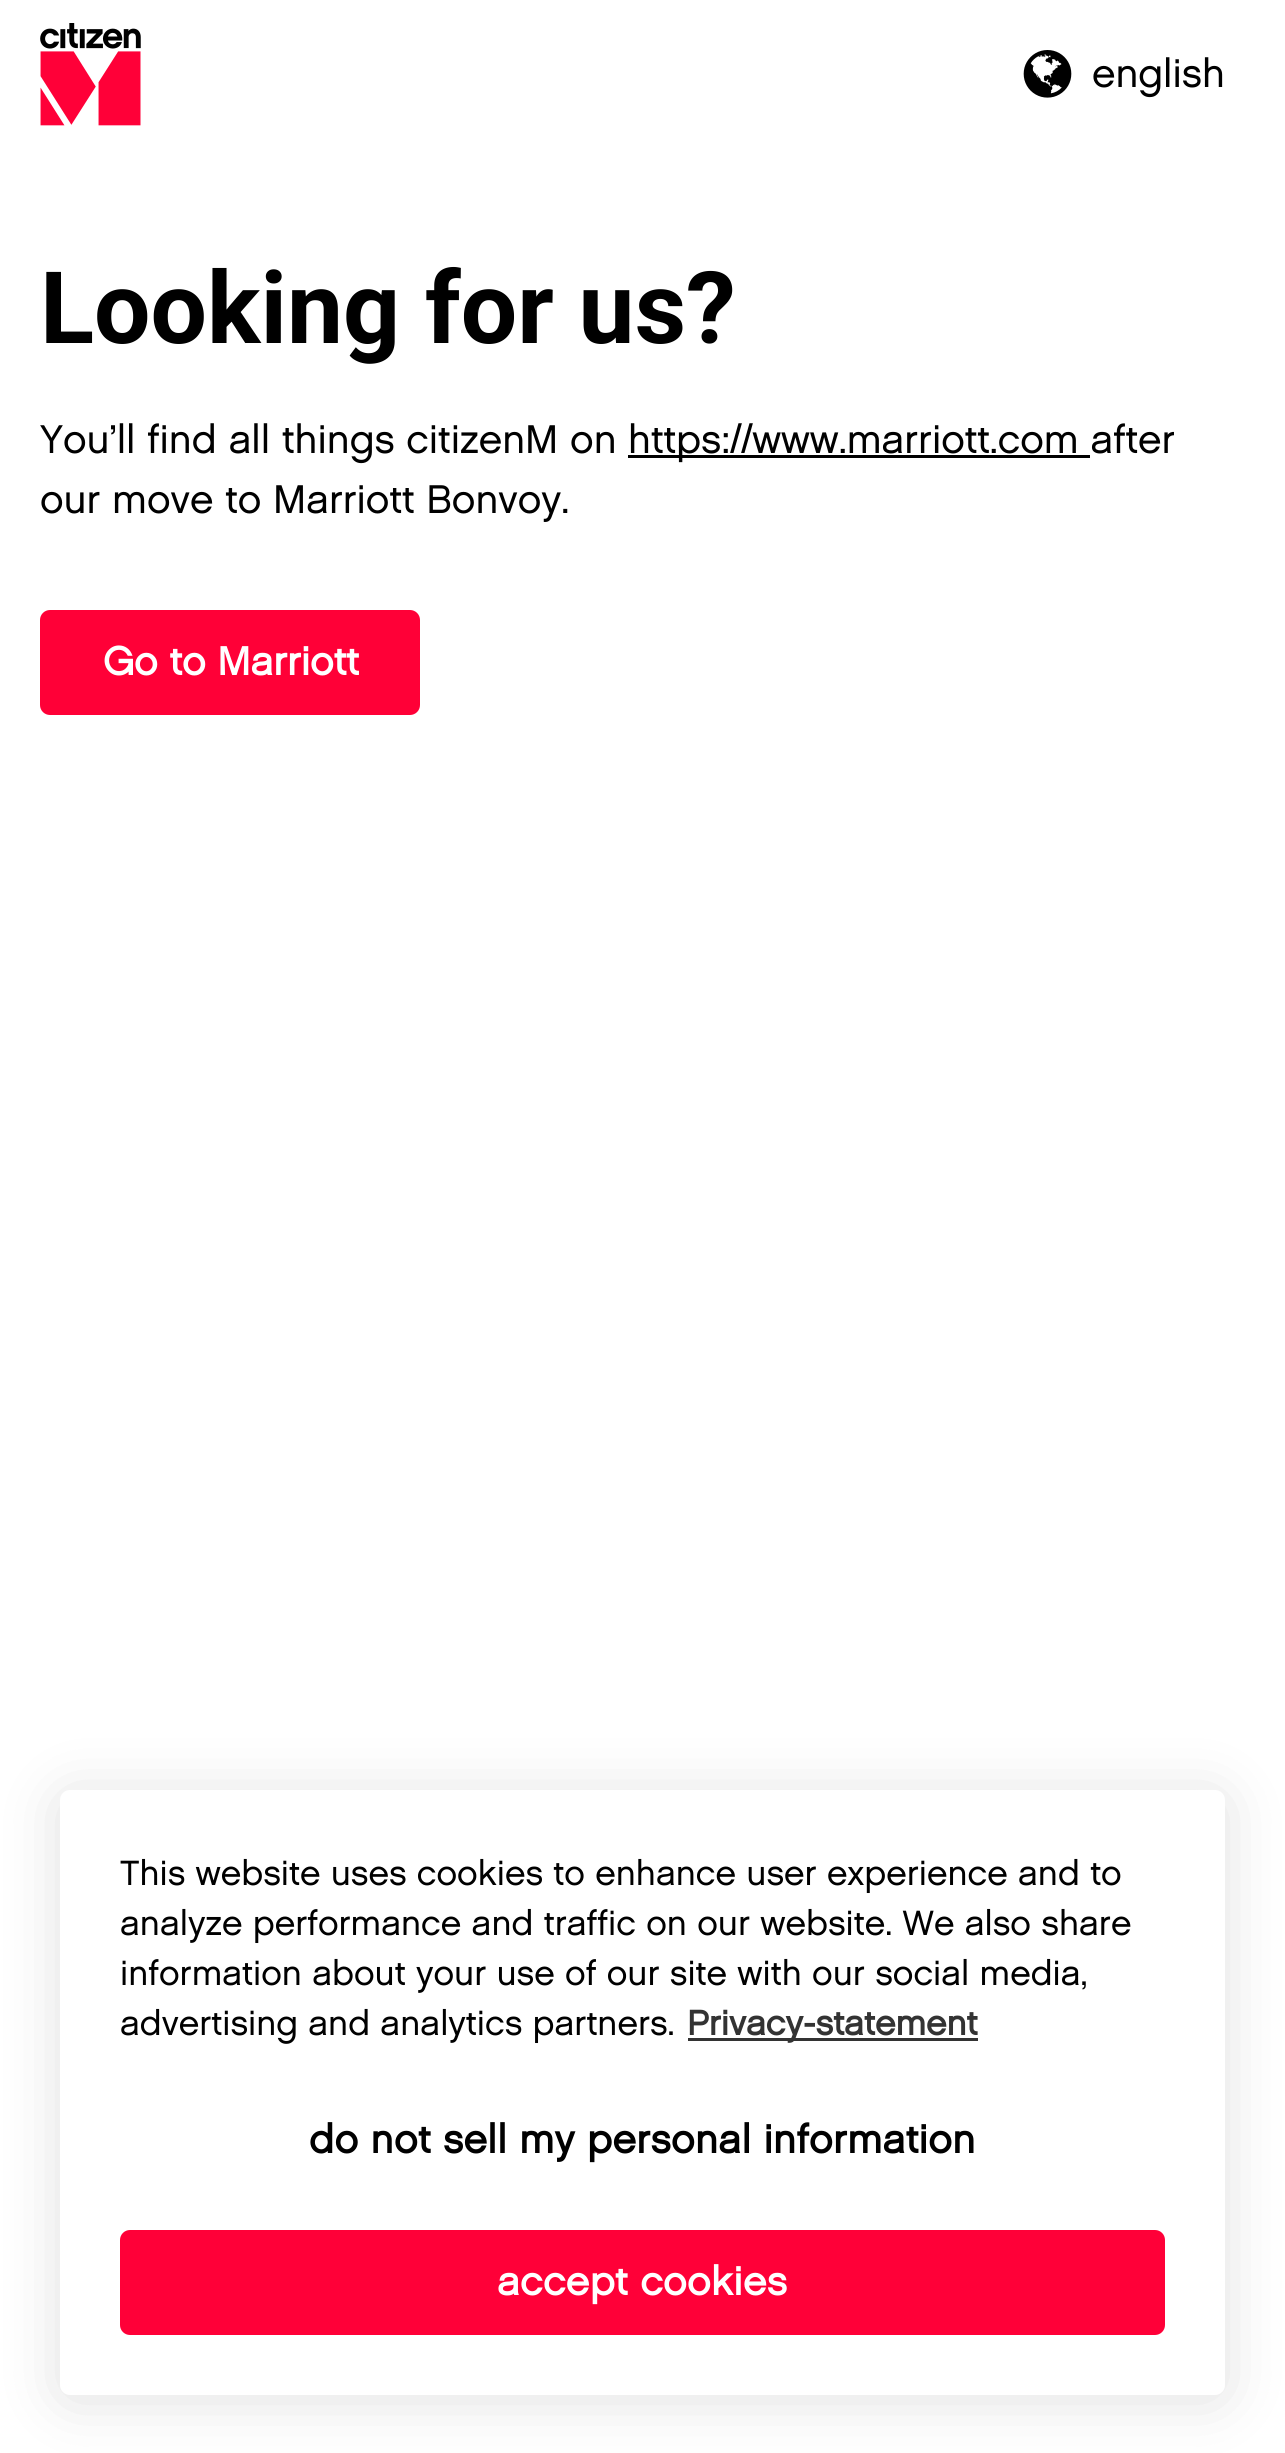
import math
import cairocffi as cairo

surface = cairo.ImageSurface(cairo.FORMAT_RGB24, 1285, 2453)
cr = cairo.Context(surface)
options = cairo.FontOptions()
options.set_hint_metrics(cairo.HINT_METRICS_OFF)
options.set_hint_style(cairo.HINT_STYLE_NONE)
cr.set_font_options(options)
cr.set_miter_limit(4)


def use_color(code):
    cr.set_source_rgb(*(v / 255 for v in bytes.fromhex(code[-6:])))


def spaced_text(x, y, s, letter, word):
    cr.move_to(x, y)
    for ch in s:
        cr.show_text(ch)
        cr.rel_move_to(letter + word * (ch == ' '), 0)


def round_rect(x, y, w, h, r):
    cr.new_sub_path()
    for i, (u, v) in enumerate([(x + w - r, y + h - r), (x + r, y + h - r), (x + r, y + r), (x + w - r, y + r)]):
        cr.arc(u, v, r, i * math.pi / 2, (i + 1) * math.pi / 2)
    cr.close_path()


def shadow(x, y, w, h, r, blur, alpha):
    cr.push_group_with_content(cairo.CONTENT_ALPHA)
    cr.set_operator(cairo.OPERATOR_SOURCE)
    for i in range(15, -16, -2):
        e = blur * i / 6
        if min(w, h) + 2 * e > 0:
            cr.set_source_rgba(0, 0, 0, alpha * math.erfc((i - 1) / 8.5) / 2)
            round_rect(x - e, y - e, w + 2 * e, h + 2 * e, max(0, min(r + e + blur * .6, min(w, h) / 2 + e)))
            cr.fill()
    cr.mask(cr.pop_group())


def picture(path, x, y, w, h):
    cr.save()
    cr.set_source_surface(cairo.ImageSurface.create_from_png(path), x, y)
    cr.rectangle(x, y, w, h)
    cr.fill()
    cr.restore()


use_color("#ffffff")
cr.paint()
picture("img1.png", 40, 23, 101, 103)
picture("img2.png", 1023, 50, 49, 48)
cr.select_font_face("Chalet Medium")
cr.set_font_size(40)
use_color("#000000")
cr.move_to(1092, 87)
cr.show_text("english")
cr.select_font_face("Roboto", cairo.FONT_SLANT_NORMAL, cairo.FONT_WEIGHT_BOLD)
cr.set_font_size(100)
cr.move_to(40, 343)
cr.show_text("Looking for us?")
cr.select_font_face("Chalet Medium")
cr.set_font_size(40)
cr.move_to(40, 453)
cr.show_text("You’ll find all things citizenM on")
cr.rectangle(628, 455, 462, 3)
cr.fill()
cr.move_to(628, 453)
cr.show_text("https://www.marriott.com after")
cr.move_to(40, 513)
cr.show_text("our move to Marriott Bonvoy.")
use_color("#ff0037")
round_rect(41.5, 611.5, 377, 102, 8.5)
cr.fill_preserve()
cr.set_line_width(3)
cr.stroke()
cr.select_font_face("Chalet", cairo.FONT_SLANT_NORMAL, cairo.FONT_WEIGHT_BOLD)
use_color("#ffffff")
cr.move_to(103, 675)
cr.show_text("Go to Marriott")
use_color("#000000")
shadow(60, 1795, 1165, 605, 10, 31, 0.12)
use_color("#ffffff")
round_rect(60, 1790, 1165, 605, 10)
cr.fill()
cr.select_font_face("Chalet Medium")
cr.set_font_size(35)
use_color("#000000")
cr.move_to(120, 1885)
cr.show_text("This website uses cookies to enhance user experience and to")
cr.move_to(120, 1935)
cr.show_text("analyze performance and traffic on our website. We also share")
cr.move_to(120, 1985)
cr.show_text("information about your use of our site with our social media,")
cr.move_to(120, 2035)
cr.show_text("advertising and analytics partners.")
use_color("#333333")
cr.rectangle(688, 2038, 290, 3)
cr.fill()
cr.select_font_face("Chalet", cairo.FONT_SLANT_NORMAL, cairo.FONT_WEIGHT_BOLD)
cr.move_to(687, 2035)
cr.show_text("Privacy-statement")
cr.set_font_size(40)
use_color("#000000")
spaced_text(309, 2153, "do not sell my personal information", 0.4, 0)
use_color("#ff0038")
round_rect(121.5, 2231.5, 1042, 102, 8.5)
cr.fill_preserve()
cr.stroke()
use_color("#ffffff")
spaced_text(497, 2295, "accept cookies", 0.4, 0)
surface.write_to_png("result.png")
